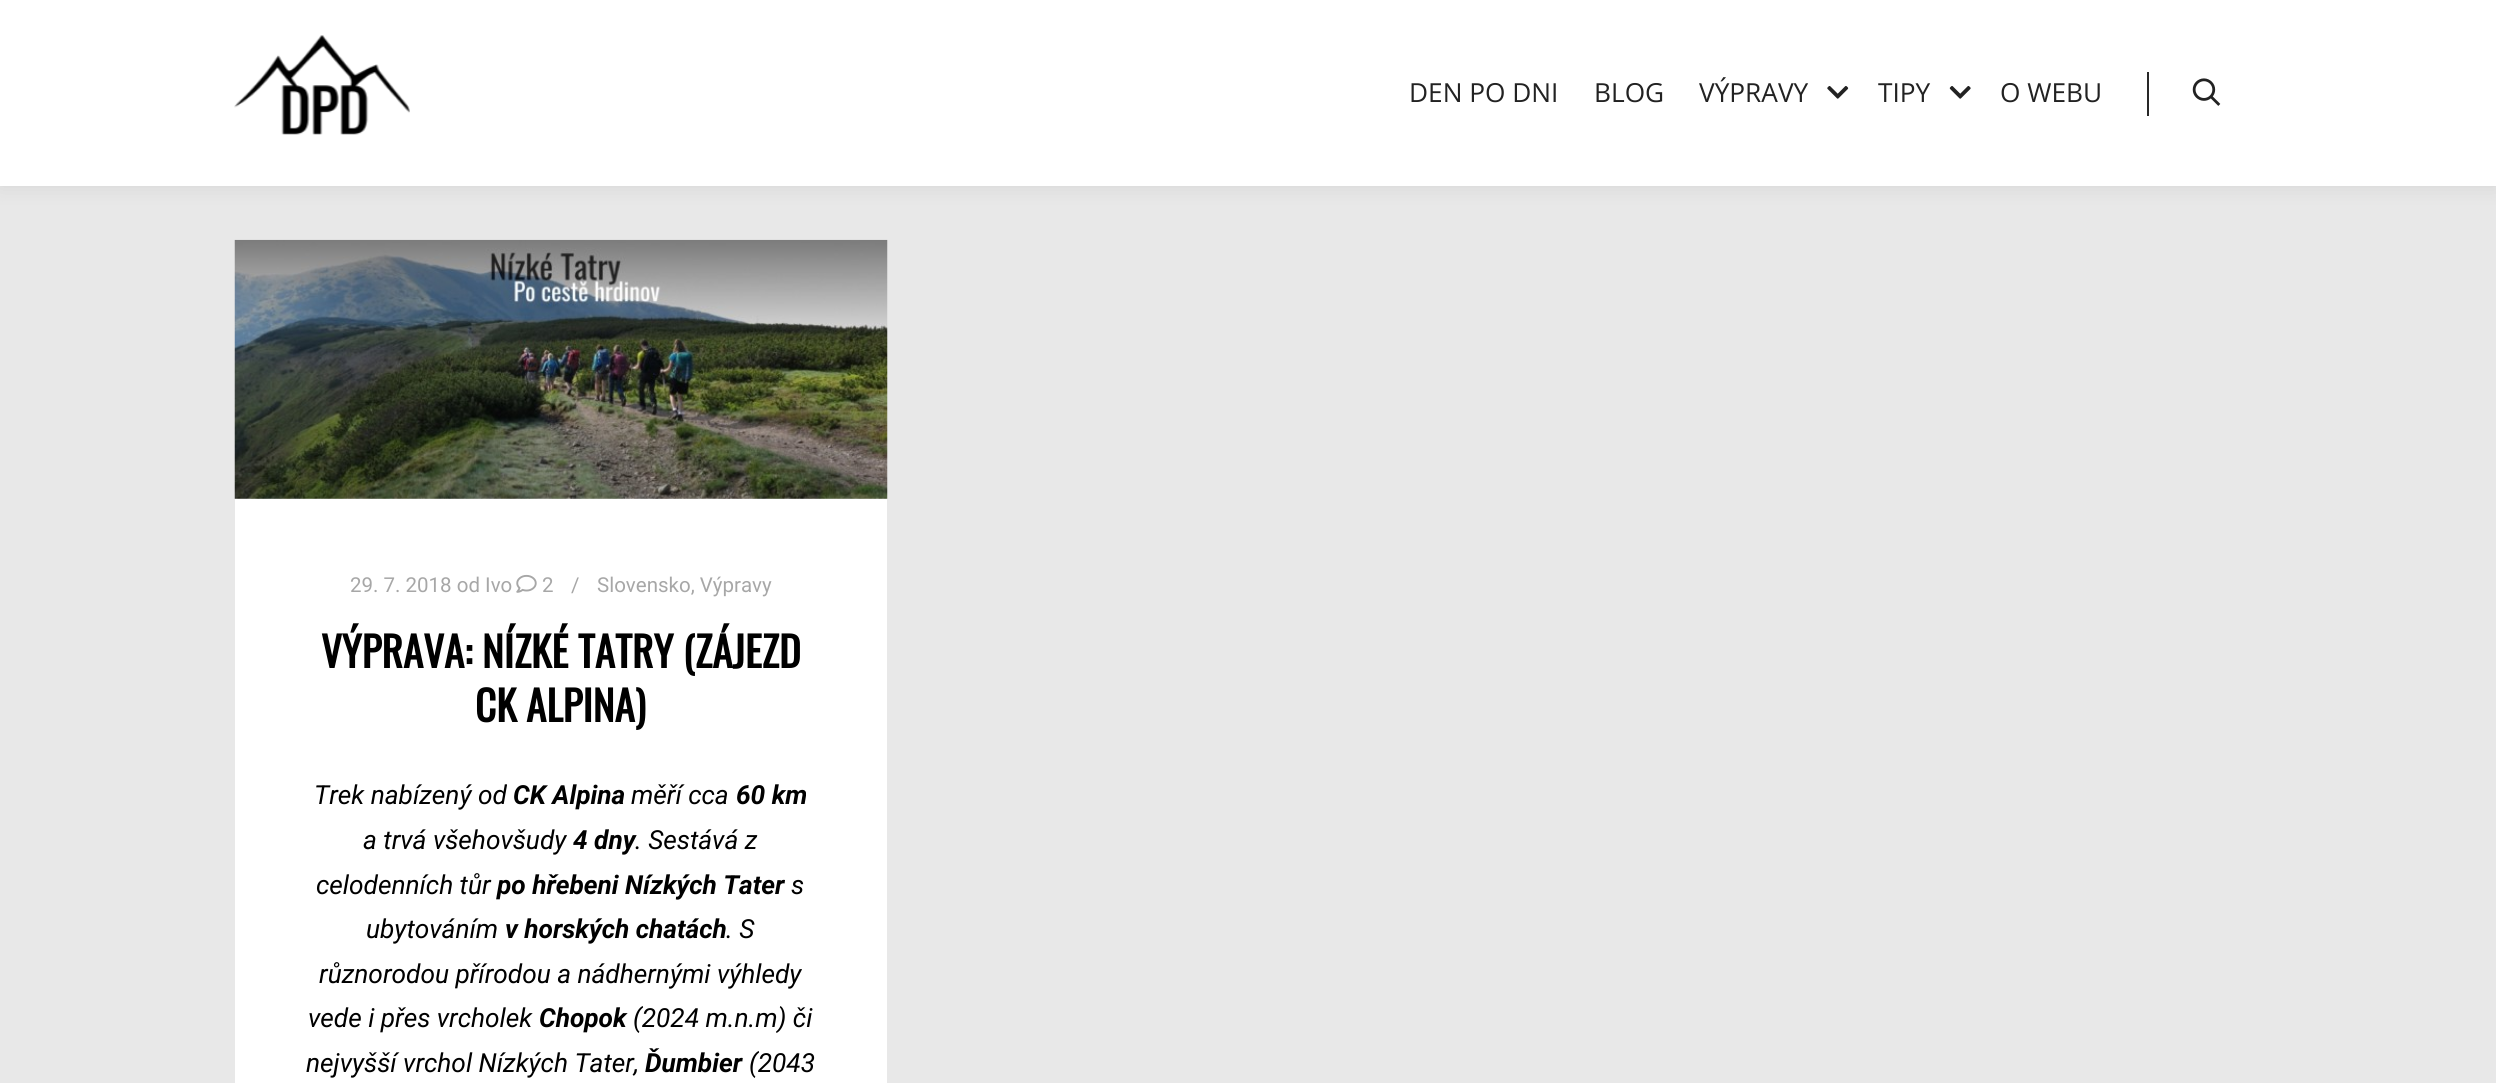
import math
import cairocffi as cairo

surface = cairo.ImageSurface(cairo.FORMAT_RGB24, 2496, 1083)
cr = cairo.Context(surface)
options = cairo.FontOptions()
options.set_hint_metrics(cairo.HINT_METRICS_OFF)
options.set_hint_style(cairo.HINT_STYLE_NONE)
cr.set_font_options(options)
cr.set_miter_limit(4)


def use_color(code):
    cr.set_source_rgb(*(v / 255 for v in bytes.fromhex(code[-6:])))


def round_rect(x, y, w, h, r):
    cr.new_sub_path()
    for i, (u, v) in enumerate([(x + w - r, y + h - r), (x + r, y + h - r), (x + r, y + r), (x + w - r, y + r)]):
        cr.arc(u, v, r, i * math.pi / 2, (i + 1) * math.pi / 2)
    cr.close_path()


def shadow(x, y, w, h, r, blur, alpha):
    cr.push_group_with_content(cairo.CONTENT_ALPHA)
    cr.set_operator(cairo.OPERATOR_SOURCE)
    for i in range(15, -16, -2):
        e = blur * i / 6
        if min(w, h) + 2 * e > 0:
            cr.set_source_rgba(0, 0, 0, alpha * math.erfc((i - 1) / 8.5) / 2)
            round_rect(x - e, y - e, w + 2 * e, h + 2 * e, max(0, min(r + e + blur * .6, min(w, h) / 2 + e)))
            cr.fill()
    cr.mask(cr.pop_group())


def picture(path, x, y, w, h):
    cr.save()
    cr.set_source_surface(cairo.ImageSurface.create_from_png(path), x, y)
    cr.rectangle(x, y, w, h)
    cr.fill()
    cr.restore()


use_color("#e8e8e8")
cr.paint()
use_color("#000000")
shadow(0, 0, 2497, 186, 0, 10.5, 0.09)
use_color("#ffffff")
cr.rectangle(0, 0, 2496, 186)
cr.fill()
picture("img1.png", 234, 35, 176, 100)
cr.select_font_face("Open Sans")
cr.set_font_size(26.25)
use_color("#222222")
cr.move_to(1409, 102)
cr.show_text("DEN PO DNI")
cr.move_to(1594, 102)
cr.show_text("BLOG")
cr.move_to(1699, 102)
cr.show_text("VÝPRAVY")
picture("img2.png", 1827, 86, 22, 13)
cr.move_to(1878, 102)
cr.show_text("TIPY")
picture("img3.png", 1949, 86, 22, 13)
cr.move_to(2000, 102)
cr.show_text("O WEBU")
use_color("#282828")
cr.rectangle(2147, 72, 2, 44)
cr.fill()
picture("img4.png", 2192, 78, 29, 28)
picture("img5.png", 234, 239, 654, 260)
use_color("#ffffff")
cr.rectangle(235, 499, 652, 584)
cr.fill()
cr.select_font_face("Roboto")
cr.set_font_size(20.5)
use_color("#a7a7a7")
cr.move_to(350, 592)
cr.show_text("29. 7. 2018 od Ivo")
picture("img6.png", 516, 574, 21, 19)
cr.move_to(542, 592)
cr.show_text("2")
cr.move_to(571, 592)
cr.show_text("/")
cr.move_to(597, 592)
cr.show_text("Slovensko, Výpravy")
cr.select_font_face("Oswald", cairo.FONT_SLANT_NORMAL, cairo.FONT_WEIGHT_BOLD)
cr.set_font_size(41.25)
use_color("#000000")
cr.move_to(321, 668)
cr.show_text("VÝPRAVA: NÍZKÉ TATRY (ZÁJEZD")
cr.move_to(475, 722)
cr.show_text("CK ALPINA)")
cr.select_font_face("Roboto", cairo.FONT_SLANT_ITALIC)
cr.set_font_size(26.25)
cr.move_to(314, 804)
cr.show_text("Trek nabízený od")
cr.select_font_face("Roboto", cairo.FONT_SLANT_ITALIC, cairo.FONT_WEIGHT_BOLD)
cr.move_to(513, 804)
cr.show_text("CK Alpina")
cr.select_font_face("Roboto", cairo.FONT_SLANT_ITALIC)
cr.move_to(631, 804)
cr.show_text("měří cca")
cr.select_font_face("Roboto", cairo.FONT_SLANT_ITALIC, cairo.FONT_WEIGHT_BOLD)
cr.move_to(736, 804)
cr.show_text("60 km")
cr.select_font_face("Roboto", cairo.FONT_SLANT_ITALIC)
cr.move_to(363, 849)
cr.show_text("a trvá všehovšudy")
cr.select_font_face("Roboto", cairo.FONT_SLANT_ITALIC, cairo.FONT_WEIGHT_BOLD)
cr.move_to(573, 849)
cr.show_text("4 dny")
cr.select_font_face("Roboto", cairo.FONT_SLANT_ITALIC)
cr.move_to(635, 849)
cr.show_text(". Sestává z")
cr.move_to(316, 894)
cr.show_text("celodenních tůr")
cr.select_font_face("Roboto", cairo.FONT_SLANT_ITALIC, cairo.FONT_WEIGHT_BOLD)
cr.move_to(497, 894)
cr.show_text("po hřebeni Nízkých Tater")
cr.select_font_face("Roboto", cairo.FONT_SLANT_ITALIC)
cr.move_to(791, 894)
cr.show_text("s")
cr.move_to(366, 938)
cr.show_text("ubytováním")
cr.select_font_face("Roboto", cairo.FONT_SLANT_ITALIC, cairo.FONT_WEIGHT_BOLD)
cr.move_to(505, 938)
cr.show_text("v horských chatách")
cr.select_font_face("Roboto", cairo.FONT_SLANT_ITALIC)
cr.move_to(726, 938)
cr.show_text(". S")
cr.move_to(319, 983)
cr.show_text("různorodou přírodou a nádhernými výhledy")
cr.move_to(308, 1027)
cr.show_text("vede i přes vrcholek")
cr.select_font_face("Roboto", cairo.FONT_SLANT_ITALIC, cairo.FONT_WEIGHT_BOLD)
cr.move_to(539, 1027)
cr.show_text("Chopok")
cr.select_font_face("Roboto", cairo.FONT_SLANT_ITALIC)
cr.move_to(633, 1027)
cr.show_text("(2024 m.n.m) či")
cr.move_to(306, 1072)
cr.show_text("nejvyšší vrchol Nízkých Tater,")
cr.select_font_face("Roboto", cairo.FONT_SLANT_ITALIC, cairo.FONT_WEIGHT_BOLD)
cr.move_to(645, 1072)
cr.show_text("Ďumbier")
cr.select_font_face("Roboto", cairo.FONT_SLANT_ITALIC)
cr.move_to(749, 1072)
cr.show_text("(2043")
surface.write_to_png("result.png")
